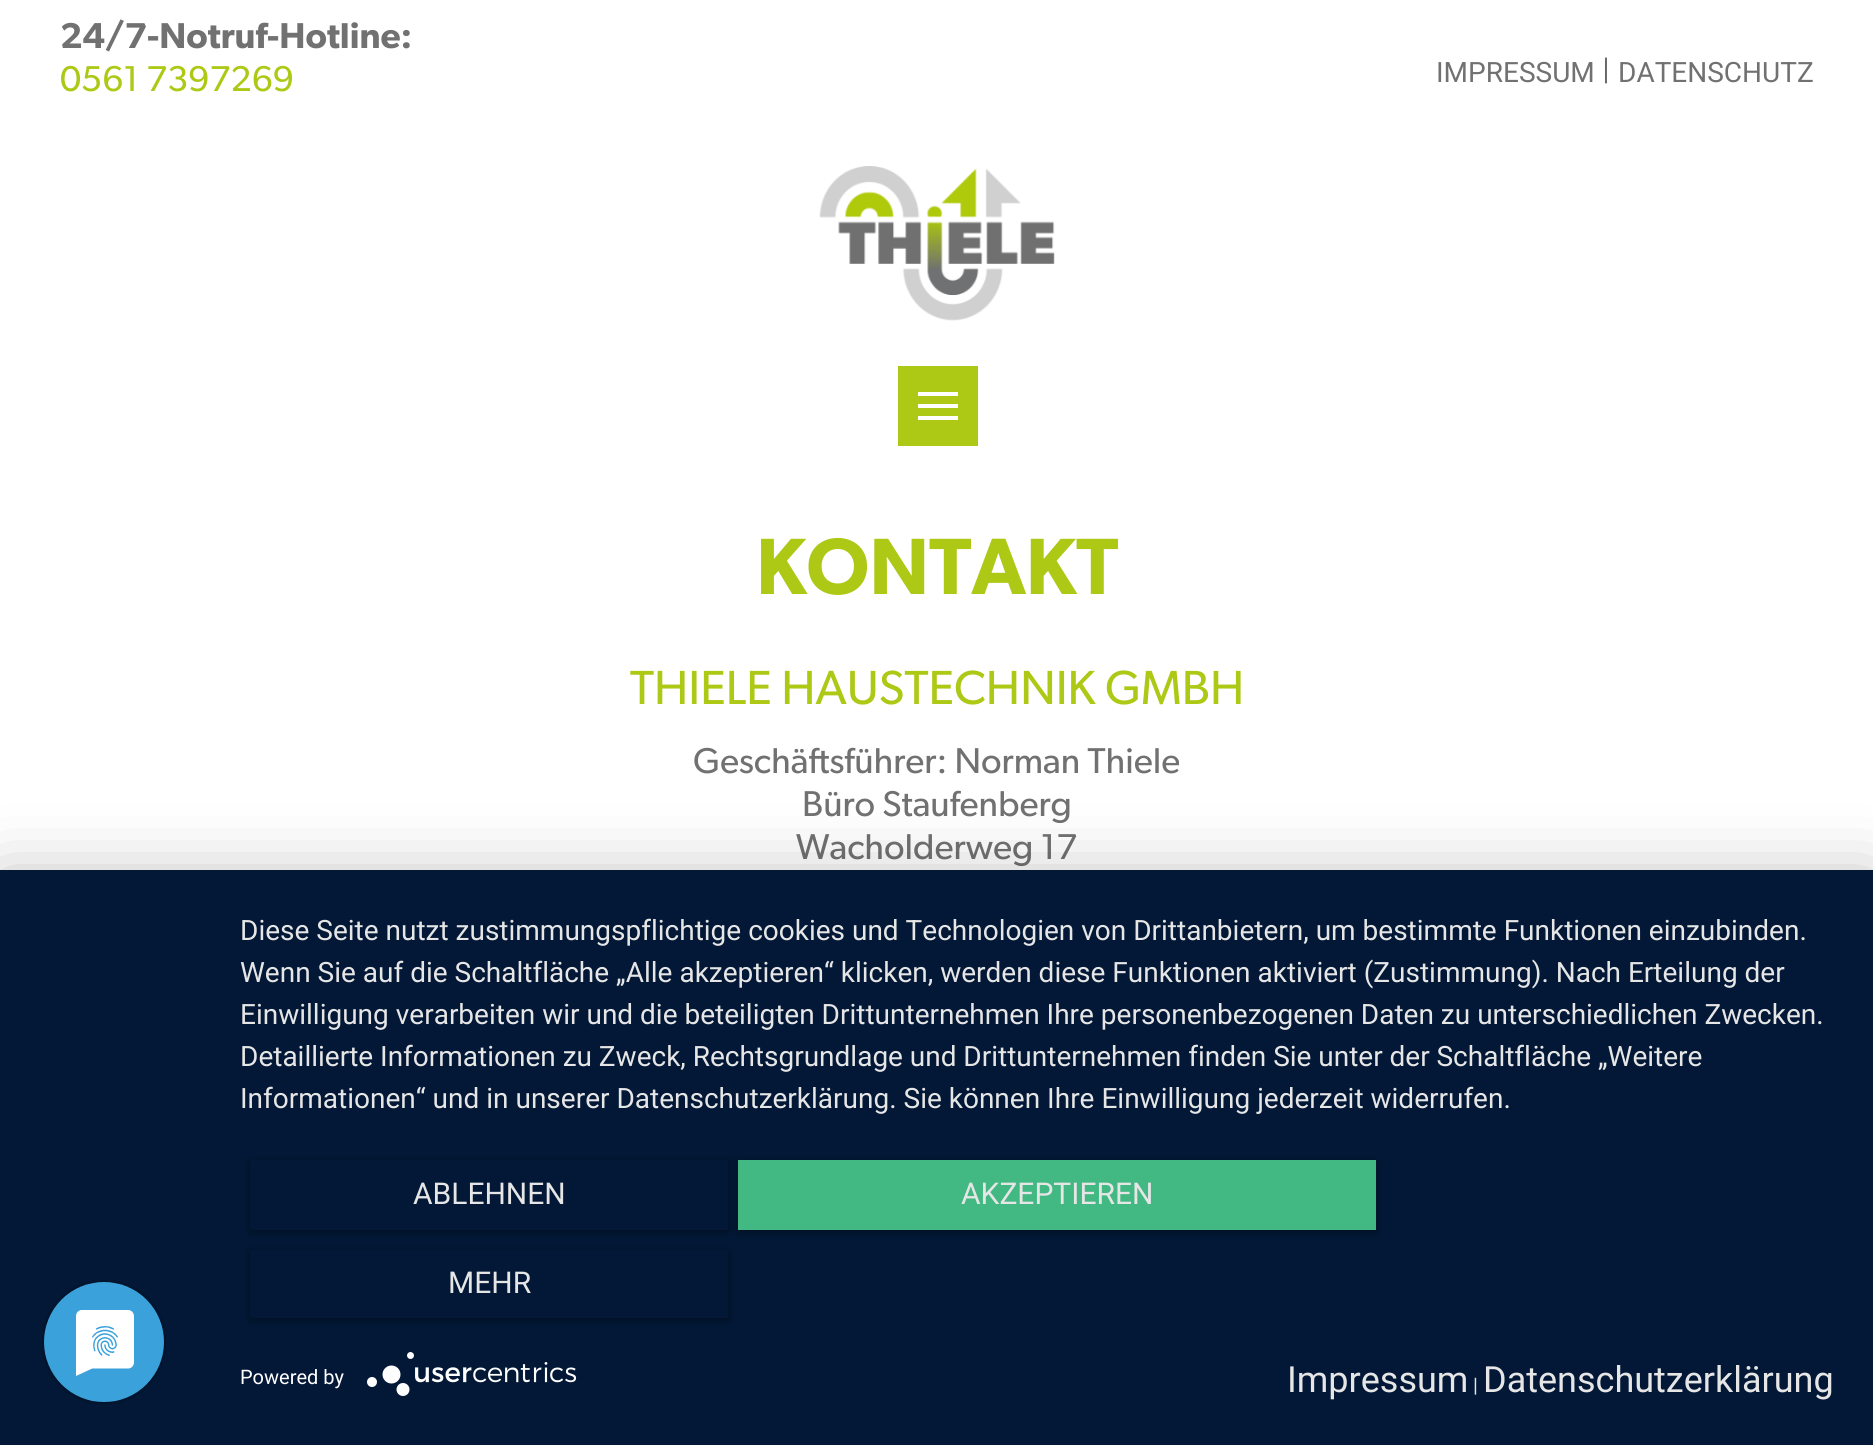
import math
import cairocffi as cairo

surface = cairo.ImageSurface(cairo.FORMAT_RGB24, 1873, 1445)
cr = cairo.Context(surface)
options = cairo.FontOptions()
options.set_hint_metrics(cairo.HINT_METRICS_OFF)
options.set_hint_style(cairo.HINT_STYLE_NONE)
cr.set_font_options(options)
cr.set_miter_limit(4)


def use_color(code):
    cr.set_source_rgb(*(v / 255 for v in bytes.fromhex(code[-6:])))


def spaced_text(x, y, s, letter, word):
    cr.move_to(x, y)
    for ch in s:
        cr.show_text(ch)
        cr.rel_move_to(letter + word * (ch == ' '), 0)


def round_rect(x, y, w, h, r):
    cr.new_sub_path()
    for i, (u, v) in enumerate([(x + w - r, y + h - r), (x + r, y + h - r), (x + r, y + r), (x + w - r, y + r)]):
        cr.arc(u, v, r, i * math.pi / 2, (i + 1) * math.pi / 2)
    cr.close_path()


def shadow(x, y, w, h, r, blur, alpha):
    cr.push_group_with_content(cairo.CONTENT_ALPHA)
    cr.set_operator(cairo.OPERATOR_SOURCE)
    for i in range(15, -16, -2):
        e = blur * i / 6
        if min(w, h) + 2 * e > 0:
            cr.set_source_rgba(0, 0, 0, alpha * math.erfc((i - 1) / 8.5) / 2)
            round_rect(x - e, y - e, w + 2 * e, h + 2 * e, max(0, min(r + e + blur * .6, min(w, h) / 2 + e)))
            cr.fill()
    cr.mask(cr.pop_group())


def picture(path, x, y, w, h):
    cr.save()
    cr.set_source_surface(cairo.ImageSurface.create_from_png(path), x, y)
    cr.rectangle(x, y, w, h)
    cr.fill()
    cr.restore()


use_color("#ffffff")
cr.paint()
cr.select_font_face("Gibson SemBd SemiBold")
cr.set_font_size(36)
use_color("#717171")
cr.move_to(60, 48)
cr.show_text("24/7-Notruf-Hotline:")
cr.select_font_face("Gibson")
use_color("#adc815")
cr.move_to(60, 91)
cr.show_text("0561 7397269")
cr.select_font_face("Roboto")
cr.set_font_size(28)
use_color("#717171")
cr.move_to(1436, 82)
cr.show_text("IMPRESSUM")
cr.select_font_face("Gibson")
use_color("#666666")
cr.move_to(1602, 80)
cr.show_text("|")
cr.select_font_face("Roboto")
use_color("#717171")
cr.move_to(1618, 82)
cr.show_text("DATENSCHUTZ")
picture("img1.png", 819, 166, 236, 155)
use_color("#adc815")
cr.rectangle(898, 366, 80, 80)
cr.fill()
use_color("#ffffff")
cr.rectangle(918, 392, 40, 4)
cr.fill()
cr.rectangle(918, 404, 40, 4)
cr.fill()
cr.rectangle(918, 416, 40, 4)
cr.fill()
cr.select_font_face("Gibson SemBd SemiBold")
cr.set_font_size(80)
use_color("#adc815")
cr.move_to(756, 594)
cr.show_text("KONTAKT")
cr.select_font_face("Gibson")
cr.set_font_size(48)
cr.move_to(630, 704)
cr.show_text("THIELE HAUSTECHNIK GMBH")
cr.set_font_size(36)
use_color("#717171")
cr.move_to(693, 773)
cr.show_text("Geschäftsführer: Norman Thiele")
cr.move_to(802, 816)
cr.show_text("Büro Staufenberg")
cr.move_to(796, 859)
cr.show_text("Wacholderweg 17")
use_color("#000000")
shadow(0, 882, 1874, 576, 0, 36, 0.3)
use_color("#021836")
cr.rectangle(0, 870, 1873, 575)
cr.fill()
picture("img2.png", 42, 1280, 124, 124)
cr.select_font_face("Roboto")
cr.set_font_size(28)
use_color("#e6e6e6")
cr.move_to(240, 940)
cr.show_text("Diese Seite nutzt zustimmungspflichtige cookies und Technologien von Drittanbietern, um bestimmte Funktionen einzubinden.")
cr.move_to(240, 982)
cr.show_text("Wenn Sie auf die Schaltfläche „Alle akzeptieren“ klicken, werden diese Funktionen aktiviert (Zustimmung). Nach Erteilung der")
cr.move_to(240, 1024)
cr.show_text("Einwilligung verarbeiten wir und die beteiligten Drittunternehmen Ihre personenbezogenen Daten zu unterschiedlichen Zwecken.")
spaced_text(240, 1066, "Detaillierte Informationen zu Zweck, Rechtsgrundlage und Drittunternehmen finden Sie unter der Schaltfläche „Weitere", 0, -0.1)
cr.move_to(240, 1108)
cr.show_text("Informationen“ und in unserer Datenschutzerklärung. Sie können Ihre Einwilligung jederzeit widerrufen.")
cr.save()
cr.set_fill_rule(cairo.FILL_RULE_EVEN_ODD)
cr.new_path()
cr.move_to(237, 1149)
cr.line_to(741, 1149)
cr.line_to(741, 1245)
cr.line_to(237, 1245)
cr.close_path()
cr.move_to(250, 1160)
cr.line_to(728, 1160)
cr.line_to(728, 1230)
cr.line_to(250, 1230)
cr.close_path()
cr.clip()
use_color("#000000")
shadow(250, 1162, 478, 70, 0, 4, 0.4)
cr.restore()
cr.set_font_size(30)
cr.move_to(413, 1204)
cr.show_text("ABLEHNEN")
use_color("#000000")
shadow(738, 1162, 638, 70, 0, 4, 0.4)
use_color("#42b983")
cr.rectangle(738, 1160, 638, 70)
cr.fill()
use_color("#e6e6e6")
cr.move_to(961, 1204)
cr.show_text("AKZEPTIEREN")
cr.save()
cr.set_fill_rule(cairo.FILL_RULE_EVEN_ODD)
cr.new_path()
cr.move_to(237, 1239)
cr.line_to(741, 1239)
cr.line_to(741, 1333)
cr.line_to(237, 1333)
cr.close_path()
cr.move_to(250, 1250)
cr.line_to(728, 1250)
cr.line_to(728, 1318)
cr.line_to(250, 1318)
cr.close_path()
cr.clip()
use_color("#000000")
shadow(250, 1252, 478, 68, 0, 4, 0.4)
cr.restore()
cr.move_to(448, 1293)
cr.show_text("MEHR")
cr.set_font_size(20)
use_color("#ffffff")
cr.move_to(240, 1384)
cr.show_text("Powered by")
picture("img3.png", 367, 1352, 210, 44)
cr.set_font_size(36)
use_color("#e6e6e6")
cr.move_to(1287, 1392)
cr.show_text("Impressum")
cr.set_font_size(20)
cr.move_to(1473, 1392)
cr.show_text("|")
cr.set_font_size(36)
cr.move_to(1483, 1392)
cr.show_text("Datenschutzerklärung")
surface.write_to_png("result.png")
